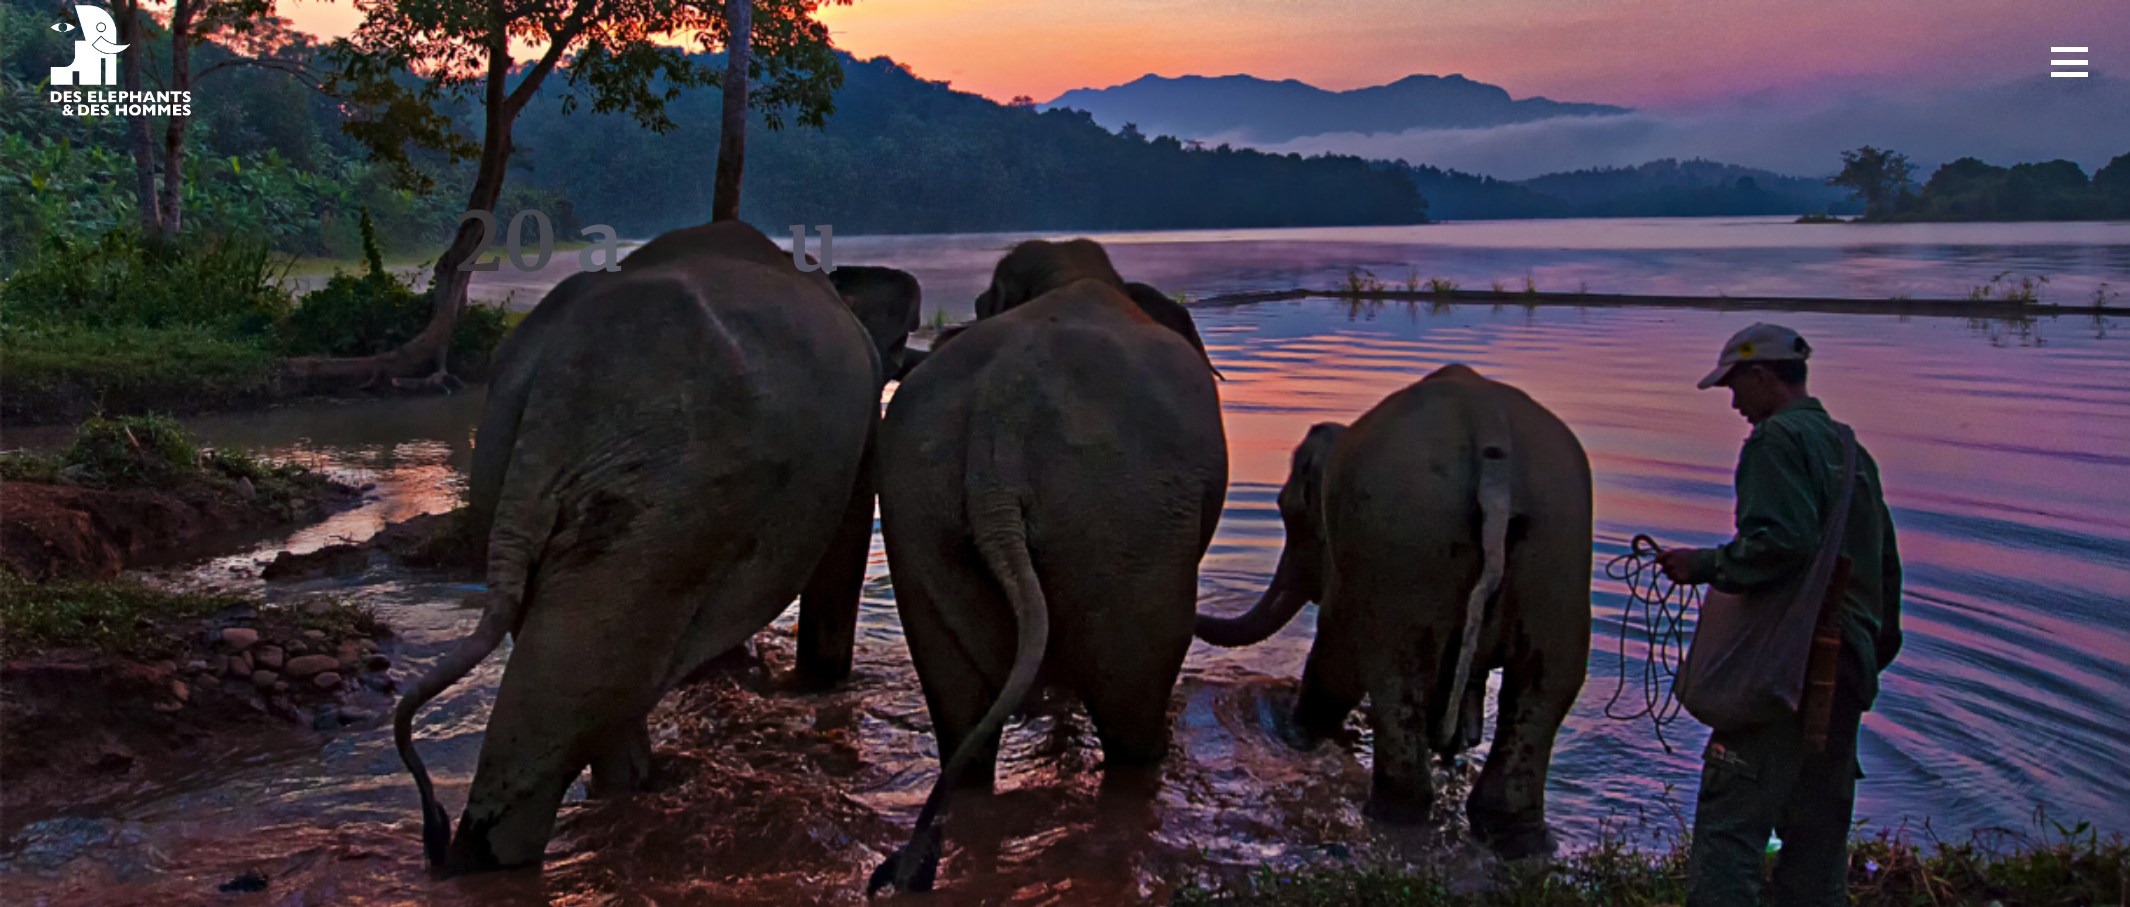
import math
import cairocffi as cairo

surface = cairo.ImageSurface(cairo.FORMAT_RGB24, 2130, 907)
cr = cairo.Context(surface)
options = cairo.FontOptions()
options.set_hint_metrics(cairo.HINT_METRICS_OFF)
options.set_hint_style(cairo.HINT_STYLE_NONE)
cr.set_font_options(options)
cr.set_miter_limit(4)


def use_color(code):
    cr.set_source_rgb(*(v / 255 for v in bytes.fromhex(code[-6:])))


def picture(path, x, y, w, h):
    cr.save()
    cr.set_source_surface(cairo.ImageSurface.create_from_png(path), x, y)
    cr.rectangle(x, y, w, h)
    cr.fill()
    cr.restore()


use_color("#ffffff")
cr.paint()
picture("img2.png", 0, 0, 2130, 907)
picture("img1.png", 50, 5, 141, 111)
use_color("#ffffff")
cr.rectangle(2051, 60, 37, 5)
cr.fill()
cr.rectangle(2051, 47, 37, 5)
cr.fill()
cr.rectangle(2051, 72, 37, 5)
cr.fill()
cr.select_font_face("Merriweather Light")
cr.set_font_size(82)
use_color("#3c393d")
cr.move_to(455, 271)
cr.show_text("2")
use_color("#45494f")
cr.move_to(503, 271)
cr.show_text("0")
use_color("#5d616d")
cr.move_to(577, 271)
cr.show_text("a")
use_color("#565567")
cr.move_to(787, 271)
cr.show_text("u")
surface.write_to_png("result.png")
